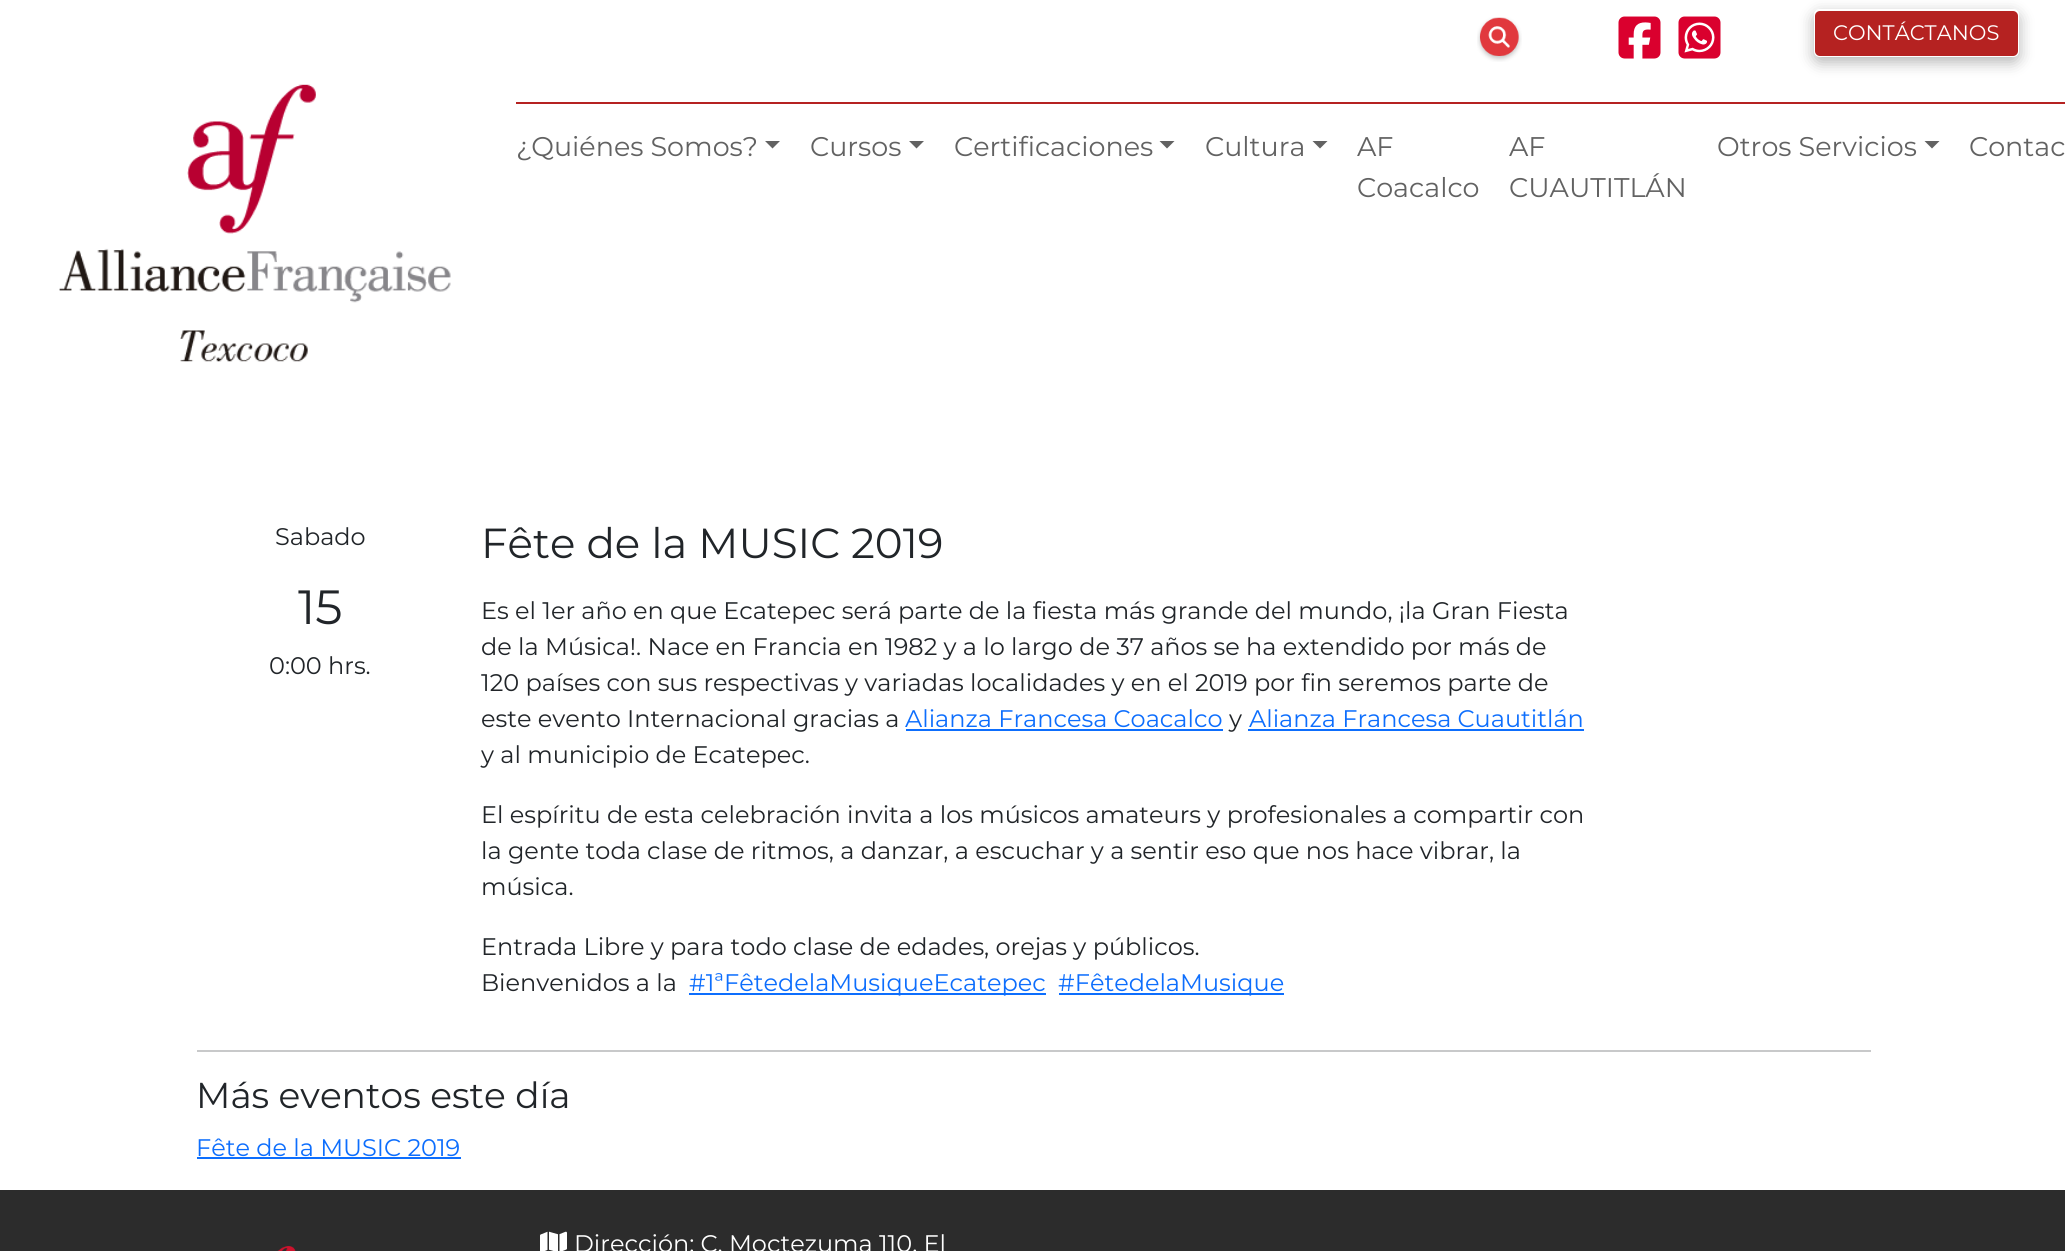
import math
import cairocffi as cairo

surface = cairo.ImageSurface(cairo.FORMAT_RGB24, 2065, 1251)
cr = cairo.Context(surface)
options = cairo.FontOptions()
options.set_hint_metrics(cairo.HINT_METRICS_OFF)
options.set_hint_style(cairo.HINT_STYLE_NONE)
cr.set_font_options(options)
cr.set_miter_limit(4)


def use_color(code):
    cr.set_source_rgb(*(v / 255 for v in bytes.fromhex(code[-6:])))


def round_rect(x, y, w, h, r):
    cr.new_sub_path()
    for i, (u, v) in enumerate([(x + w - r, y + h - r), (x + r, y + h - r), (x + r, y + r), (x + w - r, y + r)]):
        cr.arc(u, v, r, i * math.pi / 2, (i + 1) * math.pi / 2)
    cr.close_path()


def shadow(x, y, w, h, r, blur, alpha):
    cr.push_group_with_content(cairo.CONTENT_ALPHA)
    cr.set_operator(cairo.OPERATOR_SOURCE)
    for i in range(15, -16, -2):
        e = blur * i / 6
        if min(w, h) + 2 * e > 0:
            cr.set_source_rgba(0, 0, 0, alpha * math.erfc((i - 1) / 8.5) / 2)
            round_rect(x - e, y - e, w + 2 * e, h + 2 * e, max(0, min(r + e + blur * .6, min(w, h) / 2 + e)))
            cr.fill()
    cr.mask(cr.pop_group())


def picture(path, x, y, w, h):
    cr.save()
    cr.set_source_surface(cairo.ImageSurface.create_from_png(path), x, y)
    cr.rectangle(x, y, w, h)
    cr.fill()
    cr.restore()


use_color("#ffffff")
cr.paint()
picture("img1.png", 59, 84, 392, 278)
picture("img2.png", 1477, 17, 45, 45)
picture("img3.png", 1618, 16, 43, 43)
picture("img4.png", 1678, 16, 43, 43)
cr.save()
cr.set_fill_rule(cairo.FILL_RULE_EVEN_ODD)
cr.new_path()
cr.move_to(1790, 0)
cr.line_to(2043, 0)
cr.line_to(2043, 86)
cr.line_to(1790, 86)
cr.close_path()
cr.move_to(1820, 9)
cr.line_to(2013, 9)
cr.curve_to(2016.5, 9, 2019, 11.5, 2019, 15)
cr.line_to(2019, 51)
cr.curve_to(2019, 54.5, 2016.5, 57, 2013, 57)
cr.line_to(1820, 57)
cr.curve_to(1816.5, 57, 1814, 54.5, 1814, 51)
cr.line_to(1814, 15)
cr.curve_to(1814, 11.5, 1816.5, 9, 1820, 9)
cr.close_path()
cr.clip()
use_color("#000000")
shadow(1814, 14, 205, 48, 6, 7.5, 0.3)
cr.restore()
use_color("#b52221")
round_rect(1815, 11, 203, 45, 5)
cr.fill()
cr.select_font_face("Montserrat")
cr.set_font_size(21)
use_color("#ffffff")
cr.move_to(1833, 40)
cr.show_text("CONTÁCTANOS")
use_color("#b52221")
cr.rectangle(516, 102, 1549, 2)
cr.fill()
cr.set_font_size(27)
use_color("#626262")
cr.move_to(516, 156)
cr.show_text("¿Quiénes Somos?")
cr.new_path()
cr.move_to(765, 141)
cr.line_to(780, 141)
cr.line_to(772.5, 148.5)
cr.close_path()
cr.fill()
cr.move_to(810, 156)
cr.show_text("Cursos")
cr.new_path()
cr.move_to(909, 141)
cr.line_to(924, 141)
cr.line_to(916.5, 148.5)
cr.close_path()
cr.fill()
cr.move_to(954, 156)
cr.show_text("Certificaciones")
cr.new_path()
cr.move_to(1159.5, 141)
cr.line_to(1174.5, 141)
cr.line_to(1167, 148.5)
cr.close_path()
cr.fill()
cr.move_to(1205, 156)
cr.show_text("Cultura")
cr.new_path()
cr.move_to(1312.5, 141)
cr.line_to(1327.5, 141)
cr.line_to(1320, 148.5)
cr.close_path()
cr.fill()
cr.move_to(1357, 156)
cr.show_text("AF")
cr.move_to(1357, 197)
cr.show_text("Coacalco")
cr.move_to(1509, 156)
cr.show_text("AF")
cr.move_to(1509, 197)
cr.show_text("CUAUTITLÁN")
cr.move_to(1717, 156)
cr.show_text("Otros Servicios")
cr.new_path()
cr.move_to(1924.5, 141)
cr.line_to(1939.5, 141)
cr.line_to(1932, 148.5)
cr.close_path()
cr.fill()
cr.move_to(1969, 156)
cr.show_text("Contac")
cr.set_font_size(24)
use_color("#212529")
cr.move_to(275, 545)
cr.show_text("Sabado")
cr.set_font_size(48)
cr.move_to(298, 624)
cr.show_text("15")
cr.set_font_size(24)
cr.move_to(269, 674)
cr.show_text("0:00 hrs.")
cr.set_font_size(42)
cr.move_to(481, 558)
cr.show_text("Fête de la MUSIC 2019")
cr.set_font_size(24)
cr.move_to(481, 619)
cr.show_text("Es el 1er año en que Ecatepec será parte de la fiesta más grande del mundo, ¡la Gran Fiesta")
cr.move_to(481, 655)
cr.show_text("de la Música!. Nace en Francia en 1982 y a lo largo de 37 años se ha extendido por más de")
cr.move_to(481, 691)
cr.show_text("120 países con sus respectivas y variadas localidades y en el 2019 por fin seremos parte de")
cr.move_to(481, 727)
cr.show_text("este evento Internacional gracias a")
use_color("#0d6efd")
cr.move_to(905, 727)
cr.show_text("Alianza Francesa Coacalco")
cr.rectangle(906, 729, 317, 2)
cr.fill()
use_color("#212529")
cr.move_to(1229, 727)
cr.show_text("y")
use_color("#0d6efd")
cr.move_to(1249, 727)
cr.show_text("Alianza Francesa Cuautitlán")
cr.rectangle(1248, 729, 336, 2)
cr.fill()
use_color("#212529")
cr.move_to(481, 763)
cr.show_text("y al municipio de Ecatepec.")
cr.move_to(481, 823)
cr.show_text("El espíritu de esta celebración invita a los músicos amateurs y profesionales a compartir con")
cr.move_to(481, 859)
cr.show_text("la gente toda clase de ritmos, a danzar, a escuchar y a sentir eso que nos hace vibrar, la")
cr.move_to(481, 895)
cr.show_text("música.")
cr.move_to(481, 955)
cr.show_text("Entrada Libre y para todo clase de edades, orejas y públicos.")
cr.move_to(481, 991)
cr.show_text("Bienvenidos a la")
use_color("#0d6efd")
cr.rectangle(689, 993, 357, 2)
cr.fill()
cr.move_to(689, 991)
cr.show_text("#1ªFêtedelaMusiqueEcatepec")
cr.rectangle(1059, 993, 225, 2)
cr.fill()
cr.move_to(1058, 991)
cr.show_text("#FêtedelaMusique")
use_color("#c8c9ca")
cr.rectangle(197, 1050, 1674, 2)
cr.fill()
cr.set_font_size(36)
use_color("#212529")
cr.move_to(196, 1108)
cr.show_text("Más eventos este día")
cr.set_font_size(24)
use_color("#0d6efd")
cr.move_to(196, 1156)
cr.show_text("Fête de la MUSIC 2019")
cr.rectangle(197, 1157, 264, 2)
cr.fill()
use_color("#2c2c2c")
cr.rectangle(0, 1190, 2065, 61)
cr.fill()
picture("img5.png", 277, 1246, 19, 5)
picture("img6.png", 540, 1231, 27, 20)
use_color("#ffffff")
cr.move_to(574, 1252)
cr.show_text("Dirección: C. Moctezuma 110, El")
surface.write_to_png("result.png")
